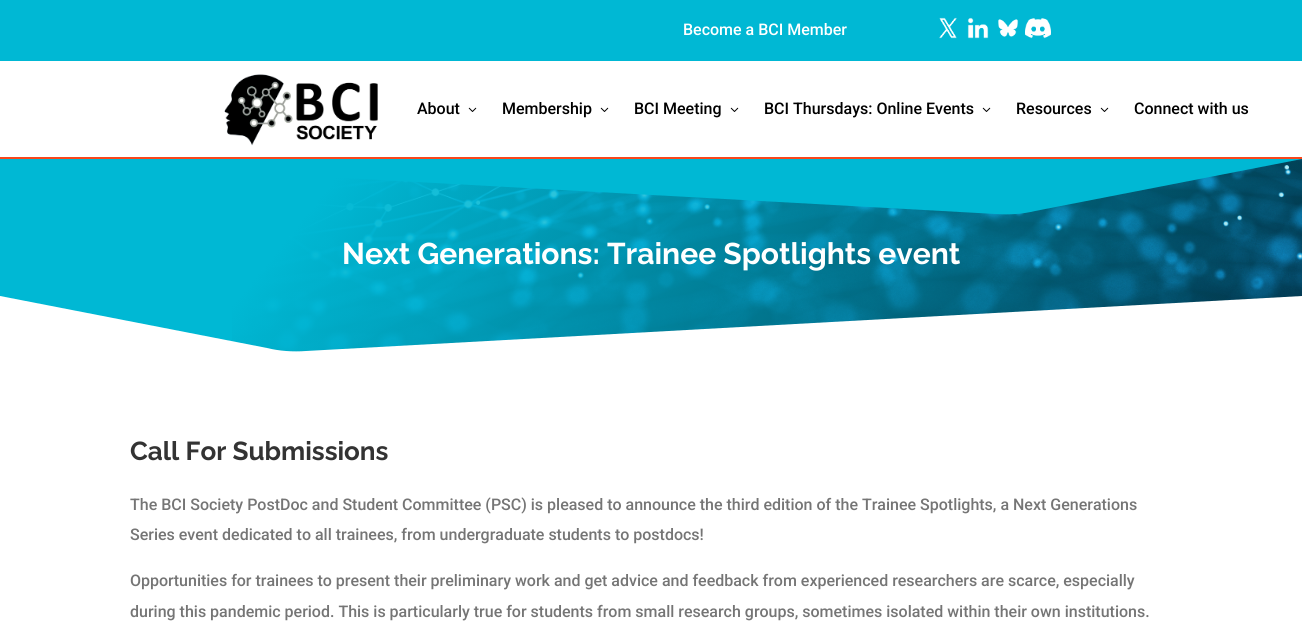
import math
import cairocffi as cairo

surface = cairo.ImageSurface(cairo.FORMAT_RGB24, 1302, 628)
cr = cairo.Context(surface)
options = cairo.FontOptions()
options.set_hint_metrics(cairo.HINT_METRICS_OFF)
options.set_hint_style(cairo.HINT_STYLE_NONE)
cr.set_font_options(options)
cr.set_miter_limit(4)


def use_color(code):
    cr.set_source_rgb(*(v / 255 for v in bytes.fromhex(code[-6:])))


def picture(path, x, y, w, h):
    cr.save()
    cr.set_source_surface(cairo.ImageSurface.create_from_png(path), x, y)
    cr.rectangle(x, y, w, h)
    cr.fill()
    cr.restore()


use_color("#00b8d4")
cr.paint()
cr.select_font_face("Roboto Medium")
cr.set_font_size(16)
use_color("#ffffff")
cr.move_to(683, 35)
cr.show_text("Become a BCI Member")
picture("img1.png", 939, 17, 18, 22)
picture("img2.png", 967, 17, 22, 22)
picture("img3.png", 998, 19, 21, 18)
picture("img4.png", 1025, 18, 26, 21)
cr.rectangle(0, 61, 1302, 96)
cr.fill()
use_color("#f9471b")
cr.rectangle(0, 157, 1302, 2)
cr.fill()
picture("img5.png", 224, 74, 154, 72)
use_color("#000000")
cr.move_to(417, 114)
cr.show_text("About")
picture("img6.png", 468, 107, 9, 5)
cr.move_to(502, 114)
cr.show_text("Membership")
picture("img6.png", 600, 107, 9, 5)
cr.move_to(634, 114)
cr.show_text("BCI Meeting")
picture("img6.png", 730, 107, 9, 5)
cr.move_to(764, 114)
cr.show_text("BCI Thursdays: Online Events")
picture("img6.png", 982, 107, 9, 5)
cr.move_to(1016, 114)
cr.show_text("Resources")
picture("img6.png", 1100, 107, 9, 5)
cr.move_to(1134, 114)
cr.show_text("Connect with us")
picture("img7.png", 232, 159, 1070, 193)
use_color("#00b8d4")
cr.new_path()
cr.move_to(996, 214)
cr.line_to(0, 159)
cr.line_to(1302, 159)
cr.line_to(1035, 211)
cr.curve_to(1023, 214, 1009, 215, 996, 214)
cr.close_path()
cr.fill()
cr.select_font_face("Raleway", cairo.FONT_SLANT_NORMAL, cairo.FONT_WEIGHT_BOLD)
cr.set_font_size(30)
use_color("#ffffff")
cr.move_to(342, 264)
cr.show_text("Next Generations: Trainee Spotlights event")
cr.new_path()
cr.move_to(0, 296)
cr.line_to(267, 348)
cr.curve_to(279, 351, 293, 352, 306, 351)
cr.line_to(1302, 296)
cr.line_to(1302, 359)
cr.line_to(0, 359)
cr.close_path()
cr.fill()
cr.rectangle(0, 359, 1302, 269)
cr.fill()
cr.set_font_size(26)
use_color("#333333")
cr.move_to(130, 460)
cr.show_text("Call For Submissions")
cr.select_font_face("Roboto Medium")
cr.set_font_size(16)
use_color("#757575")
cr.move_to(130, 510)
cr.show_text("The BCI Society PostDoc and Student Committee (PSC) is pleased to announce the third edition of the Trainee Spotlights, a Next Generations")
cr.move_to(130, 540)
cr.show_text("Series event dedicated to all trainees, from undergraduate students to postdocs!")
cr.move_to(130, 586)
cr.show_text("Opportunities for trainees to present their preliminary work and get advice and feedback from experienced researchers are scarce, especially")
cr.move_to(130, 617)
cr.show_text("during this pandemic period. This is particularly true for students from small research groups, sometimes isolated within their own institutions.")
surface.write_to_png("result.png")
